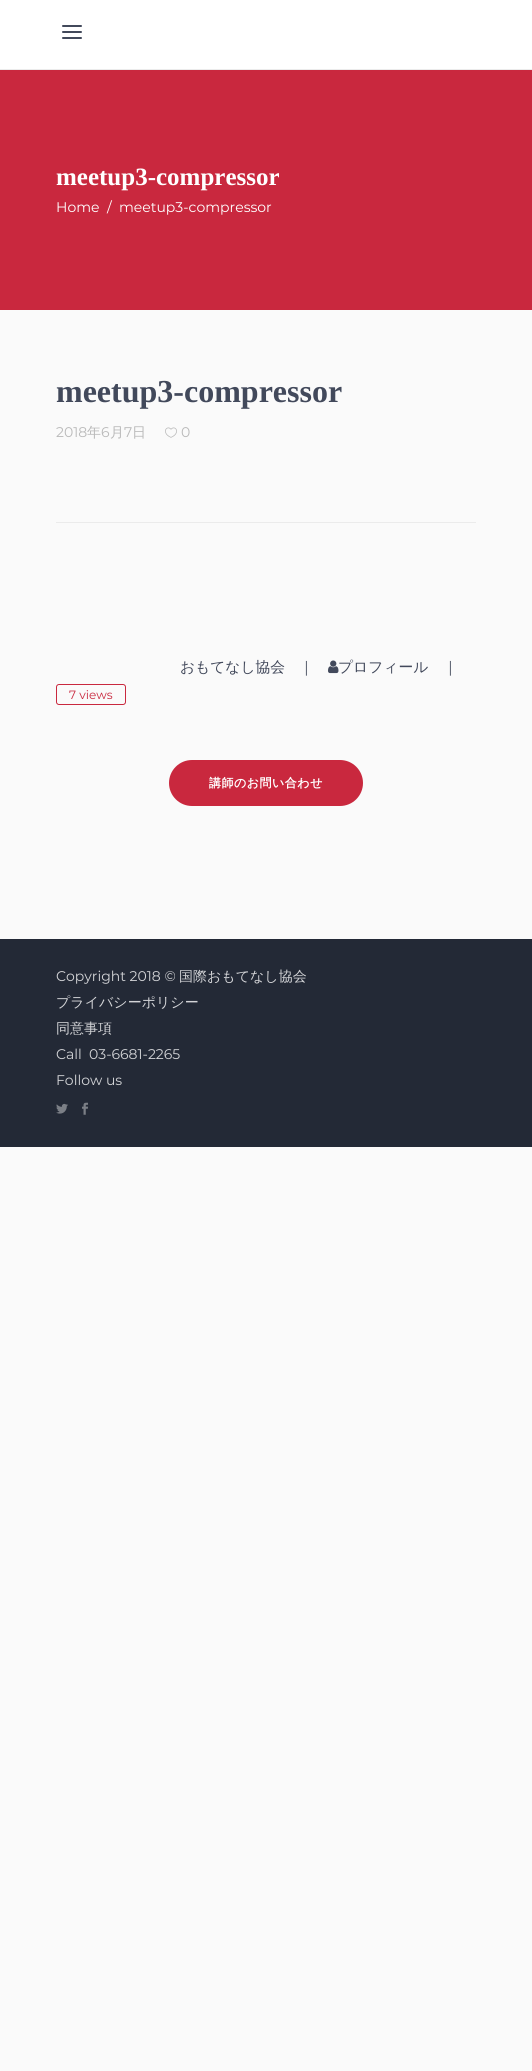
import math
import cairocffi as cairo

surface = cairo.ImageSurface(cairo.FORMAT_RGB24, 532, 2071)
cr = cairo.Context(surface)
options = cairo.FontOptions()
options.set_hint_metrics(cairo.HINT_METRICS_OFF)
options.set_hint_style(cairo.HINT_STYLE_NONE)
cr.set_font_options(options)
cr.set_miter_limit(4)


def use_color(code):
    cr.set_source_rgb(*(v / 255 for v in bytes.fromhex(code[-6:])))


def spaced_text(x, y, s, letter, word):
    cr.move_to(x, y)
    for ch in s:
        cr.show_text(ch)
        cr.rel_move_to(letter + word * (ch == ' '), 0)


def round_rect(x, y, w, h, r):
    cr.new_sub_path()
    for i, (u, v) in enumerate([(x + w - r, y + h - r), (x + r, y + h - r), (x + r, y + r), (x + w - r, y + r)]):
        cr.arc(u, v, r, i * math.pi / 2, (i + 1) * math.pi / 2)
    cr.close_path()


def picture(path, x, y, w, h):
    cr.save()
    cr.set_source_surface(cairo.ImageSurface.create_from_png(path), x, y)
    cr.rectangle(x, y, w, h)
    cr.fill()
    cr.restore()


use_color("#fafafa")
cr.paint()
use_color("#ffffff")
cr.rectangle(0, 0, 532, 69)
cr.fill()
use_color("#ebebeb")
cr.rectangle(0, 69, 532, 1)
cr.fill()
picture("img1.png", 62, 25, 20, 14)
use_color("#c9283e")
cr.rectangle(0, 70, 532, 240)
cr.fill()
cr.select_font_face("Liberation Serif", cairo.FONT_SLANT_NORMAL, cairo.FONT_WEIGHT_BOLD)
cr.set_font_size(25)
use_color("#ffffff")
cr.move_to(56, 185)
cr.show_text("meetup3-compressor")
cr.select_font_face("Montserrat")
cr.set_font_size(14)
cr.move_to(56, 212)
cr.show_text("Home")
cr.move_to(107, 212)
cr.show_text("/")
cr.move_to(119, 212)
cr.show_text("meetup3-compressor")
cr.select_font_face("Liberation Serif", cairo.FONT_SLANT_NORMAL, cairo.FONT_WEIGHT_BOLD)
cr.set_font_size(32)
use_color("#42495b")
cr.move_to(56, 402)
cr.show_text("meetup3-compressor")
cr.select_font_face("Montserrat")
cr.set_font_size(14)
use_color("#b9b9b9")
cr.move_to(56, 437)
cr.show_text("2018")
cr.select_font_face("WenQuanYi Zen Hei Medium")
cr.move_to(87, 437)
cr.show_text("年")
cr.select_font_face("Montserrat")
cr.move_to(101, 437)
cr.show_text("6")
cr.select_font_face("WenQuanYi Zen Hei Medium")
cr.move_to(110, 437)
cr.show_text("月")
cr.select_font_face("Montserrat")
cr.move_to(124, 437)
cr.show_text("7")
cr.select_font_face("WenQuanYi Zen Hei Medium")
cr.move_to(132, 437)
cr.show_text("日")
picture("img2.png", 165, 427, 12, 11)
cr.select_font_face("Montserrat")
cr.move_to(181, 437)
cr.show_text("0")
use_color("#ebebeb")
cr.rectangle(56, 522, 420, 1)
cr.fill()
cr.select_font_face("WenQuanYi Zen Hei Medium")
cr.set_font_size(14.75)
use_color("#42495b")
cr.move_to(180, 672)
cr.show_text("おもてなし協会")
cr.move_to(299, 672)
cr.show_text("｜")
picture("img3.png", 328, 660, 11, 14)
cr.move_to(338, 672)
cr.show_text("プロフィール")
cr.move_to(443, 672)
cr.show_text("｜")
round_rect(56.5, 684.5, 69, 20, 2.5)
use_color("#c9283e")
cr.set_line_width(1)
cr.stroke()
cr.select_font_face("Montserrat")
cr.set_font_size(12)
cr.move_to(69, 699)
cr.show_text("7 views")
round_rect(169, 760, 194, 46, 23)
cr.fill()
cr.select_font_face("WenQuanYi Zen Hei", cairo.FONT_SLANT_NORMAL, cairo.FONT_WEIGHT_BOLD)
use_color("#ffffff")
spaced_text(209, 787, "講師のお問い合わせ", 0.5, 0)
use_color("#232936")
cr.rectangle(0, 939, 532, 208)
cr.fill()
cr.select_font_face("Montserrat")
cr.set_font_size(14)
use_color("#d3d4d7")
cr.move_to(56, 981)
cr.show_text("Copyright 2018 ©")
cr.select_font_face("WenQuanYi Zen Hei Medium")
cr.move_to(179, 981)
cr.show_text("国際おもてなし協会")
cr.move_to(56, 1007)
cr.show_text("プライバシーポリシー")
cr.move_to(56, 1033)
cr.show_text("同意事項")
cr.select_font_face("Montserrat")
cr.move_to(56, 1059)
cr.show_text("Call")
cr.move_to(89, 1059)
cr.show_text("03-6681-2265")
cr.move_to(56, 1085)
cr.show_text("Follow us")
picture("img4.png", 56, 1103, 12, 11)
picture("img5.png", 82, 1102, 6, 13)
surface.write_to_png("result.png")
